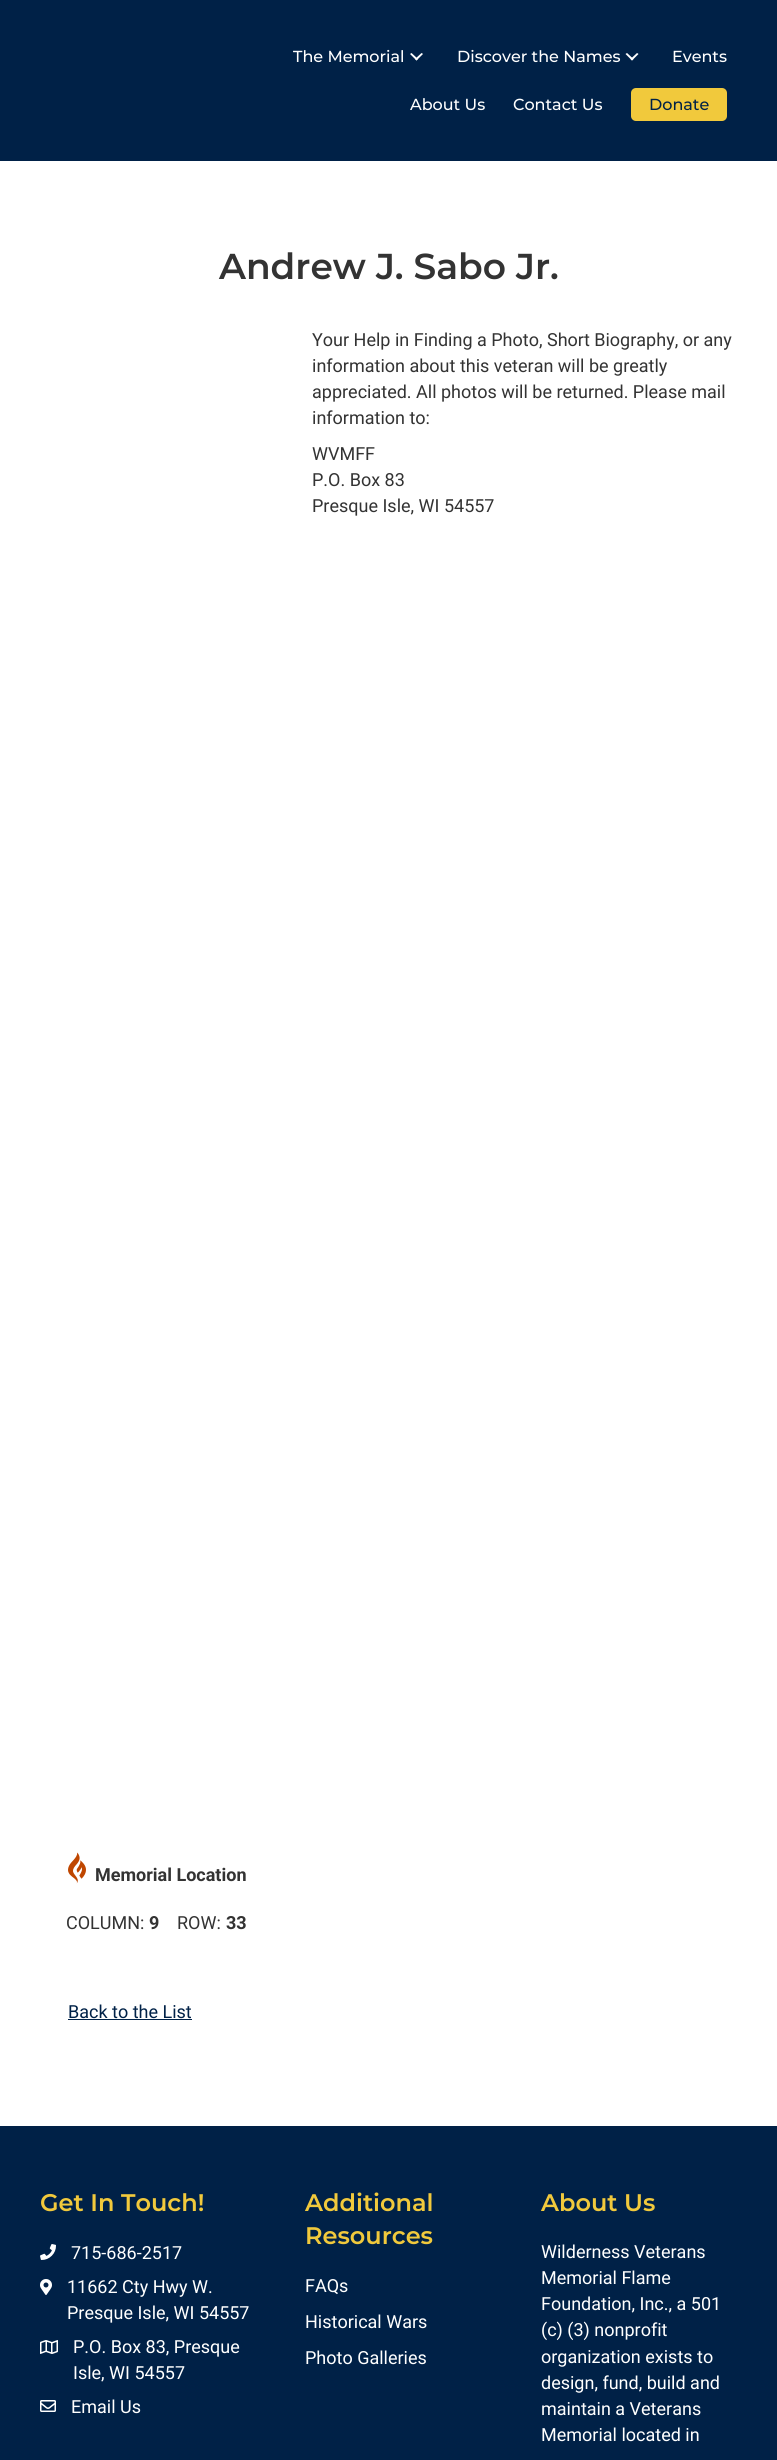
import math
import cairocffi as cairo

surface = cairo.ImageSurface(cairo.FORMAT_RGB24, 777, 2460)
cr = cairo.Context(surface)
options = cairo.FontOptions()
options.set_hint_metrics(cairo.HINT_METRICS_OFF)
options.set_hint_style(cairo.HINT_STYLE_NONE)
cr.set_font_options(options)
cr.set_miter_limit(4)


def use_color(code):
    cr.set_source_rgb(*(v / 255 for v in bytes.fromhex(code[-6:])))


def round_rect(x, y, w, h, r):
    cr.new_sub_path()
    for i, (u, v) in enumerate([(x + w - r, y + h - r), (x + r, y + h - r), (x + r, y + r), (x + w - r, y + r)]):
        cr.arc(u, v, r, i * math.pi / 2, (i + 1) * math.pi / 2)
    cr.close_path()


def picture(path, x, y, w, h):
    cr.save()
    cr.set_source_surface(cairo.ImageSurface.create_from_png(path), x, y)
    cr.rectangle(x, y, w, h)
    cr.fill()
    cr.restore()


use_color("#ffffff")
cr.paint()
use_color("#002147")
cr.rectangle(0, 0, 777, 161)
cr.fill()
cr.select_font_face("Montserrat Medium")
cr.set_font_size(16)
use_color("#ffffff")
cr.move_to(293, 62)
cr.show_text("The Memorial")
cr.new_path()
cr.move_to(421.5, 53)
cr.line_to(423, 54)
cr.line_to(416.5, 60.5)
cr.line_to(415, 59)
cr.close_path()
cr.fill()
cr.new_path()
cr.move_to(411.5, 53)
cr.line_to(418, 59)
cr.line_to(416.5, 60.5)
cr.line_to(410, 54)
cr.close_path()
cr.fill()
cr.move_to(457, 62)
cr.show_text("Discover the Names")
cr.new_path()
cr.move_to(637, 53)
cr.line_to(638.5, 54)
cr.line_to(632, 60.5)
cr.line_to(630.5, 59)
cr.close_path()
cr.fill()
cr.new_path()
cr.move_to(627, 53)
cr.line_to(633.5, 59)
cr.line_to(632, 60.5)
cr.line_to(625.5, 54)
cr.close_path()
cr.fill()
cr.move_to(672, 62)
cr.show_text("Events")
cr.move_to(410, 110)
cr.show_text("About Us")
cr.move_to(513, 110)
cr.show_text("Contact Us")
use_color("#f1c93c")
round_rect(631, 88, 96, 33, 5)
cr.fill()
use_color("#002147")
cr.move_to(649, 110)
cr.show_text("Donate")
cr.select_font_face("Montserrat SemiBold")
cr.set_font_size(36)
use_color("#333333")
cr.move_to(219, 279)
cr.show_text("Andrew J. Sabo Jr.")
cr.select_font_face("Roboto")
cr.set_font_size(18)
cr.move_to(312, 346)
cr.show_text("Your Help in Finding a Photo, Short Biography, or any")
cr.move_to(312, 372)
cr.show_text("information about this veteran will be greatly")
cr.move_to(312, 398)
cr.show_text("appreciated. All photos will be returned. Please mail")
cr.move_to(312, 424)
cr.show_text("information to:")
cr.move_to(312, 460)
cr.show_text("WVMFF")
cr.move_to(312, 486)
cr.show_text("P.O. Box 83")
cr.move_to(312, 512)
cr.show_text("Presque Isle, WI 54557")
picture("img1.png", 68, 1852, 18, 32)
cr.select_font_face("Roboto", cairo.FONT_SLANT_NORMAL, cairo.FONT_WEIGHT_BOLD)
cr.move_to(95, 1881)
cr.show_text("Memorial Location")
cr.select_font_face("Roboto")
cr.move_to(66, 1929)
cr.show_text("COLUMN:")
cr.select_font_face("Roboto", cairo.FONT_SLANT_NORMAL, cairo.FONT_WEIGHT_BOLD)
cr.move_to(149, 1929)
cr.show_text("9")
cr.select_font_face("Roboto")
cr.move_to(177, 1929)
cr.show_text("ROW:")
cr.select_font_face("Roboto", cairo.FONT_SLANT_NORMAL, cairo.FONT_WEIGHT_BOLD)
cr.move_to(226, 1929)
cr.show_text("33")
cr.select_font_face("Roboto")
use_color("#002147")
cr.move_to(68, 2018)
cr.show_text("Back to the List")
cr.rectangle(68, 2019, 124, 1)
cr.fill()
cr.rectangle(0, 2126, 777, 334)
cr.fill()
cr.select_font_face("Montserrat SemiBold")
cr.set_font_size(24)
use_color("#f1c93c")
cr.move_to(40, 2211)
cr.show_text("Get In Touch!")
picture("img2.png", 40, 2244, 16, 16)
cr.select_font_face("Roboto")
cr.set_font_size(18)
use_color("#ffffff")
cr.move_to(71, 2259)
cr.show_text("715-686-2517")
picture("img3.png", 40, 2279, 12, 16)
cr.move_to(67, 2293)
cr.show_text("11662 Cty Hwy W.")
cr.move_to(67, 2319)
cr.show_text("Presque Isle, WI 54557")
picture("img4.png", 40, 2340, 18, 14)
cr.move_to(73, 2353)
cr.show_text("P.O. Box 83, Presque")
cr.move_to(73, 2379)
cr.show_text("Isle, WI 54557")
picture("img5.png", 40, 2400, 16, 12)
cr.move_to(71, 2413)
cr.show_text("Email Us")
cr.select_font_face("Montserrat SemiBold")
cr.set_font_size(24)
use_color("#f1c93c")
cr.move_to(305, 2211)
cr.show_text("Additional")
cr.move_to(305, 2244)
cr.show_text("Resources")
cr.select_font_face("Roboto")
cr.set_font_size(18)
use_color("#ffffff")
cr.move_to(305, 2292)
cr.show_text("FAQs")
cr.move_to(305, 2328)
cr.show_text("Historical Wars")
cr.move_to(305, 2364)
cr.show_text("Photo Galleries")
cr.select_font_face("Montserrat SemiBold")
cr.set_font_size(24)
use_color("#f1c93c")
cr.move_to(541, 2211)
cr.show_text("About Us")
cr.select_font_face("Roboto")
cr.set_font_size(18)
use_color("#ffffff")
cr.move_to(541, 2258)
cr.show_text("Wilderness Veterans")
cr.move_to(541, 2284)
cr.show_text("Memorial Flame")
cr.move_to(541, 2310)
cr.show_text("Foundation, Inc., a 501")
cr.move_to(541, 2336)
cr.show_text("(c) (3) nonprofit")
cr.move_to(541, 2363)
cr.show_text("organization exists to")
cr.move_to(541, 2389)
cr.show_text("design, fund, build and")
cr.move_to(541, 2415)
cr.show_text("maintain a Veterans")
cr.move_to(541, 2441)
cr.show_text("Memorial located in")
surface.write_to_png("result.png")
